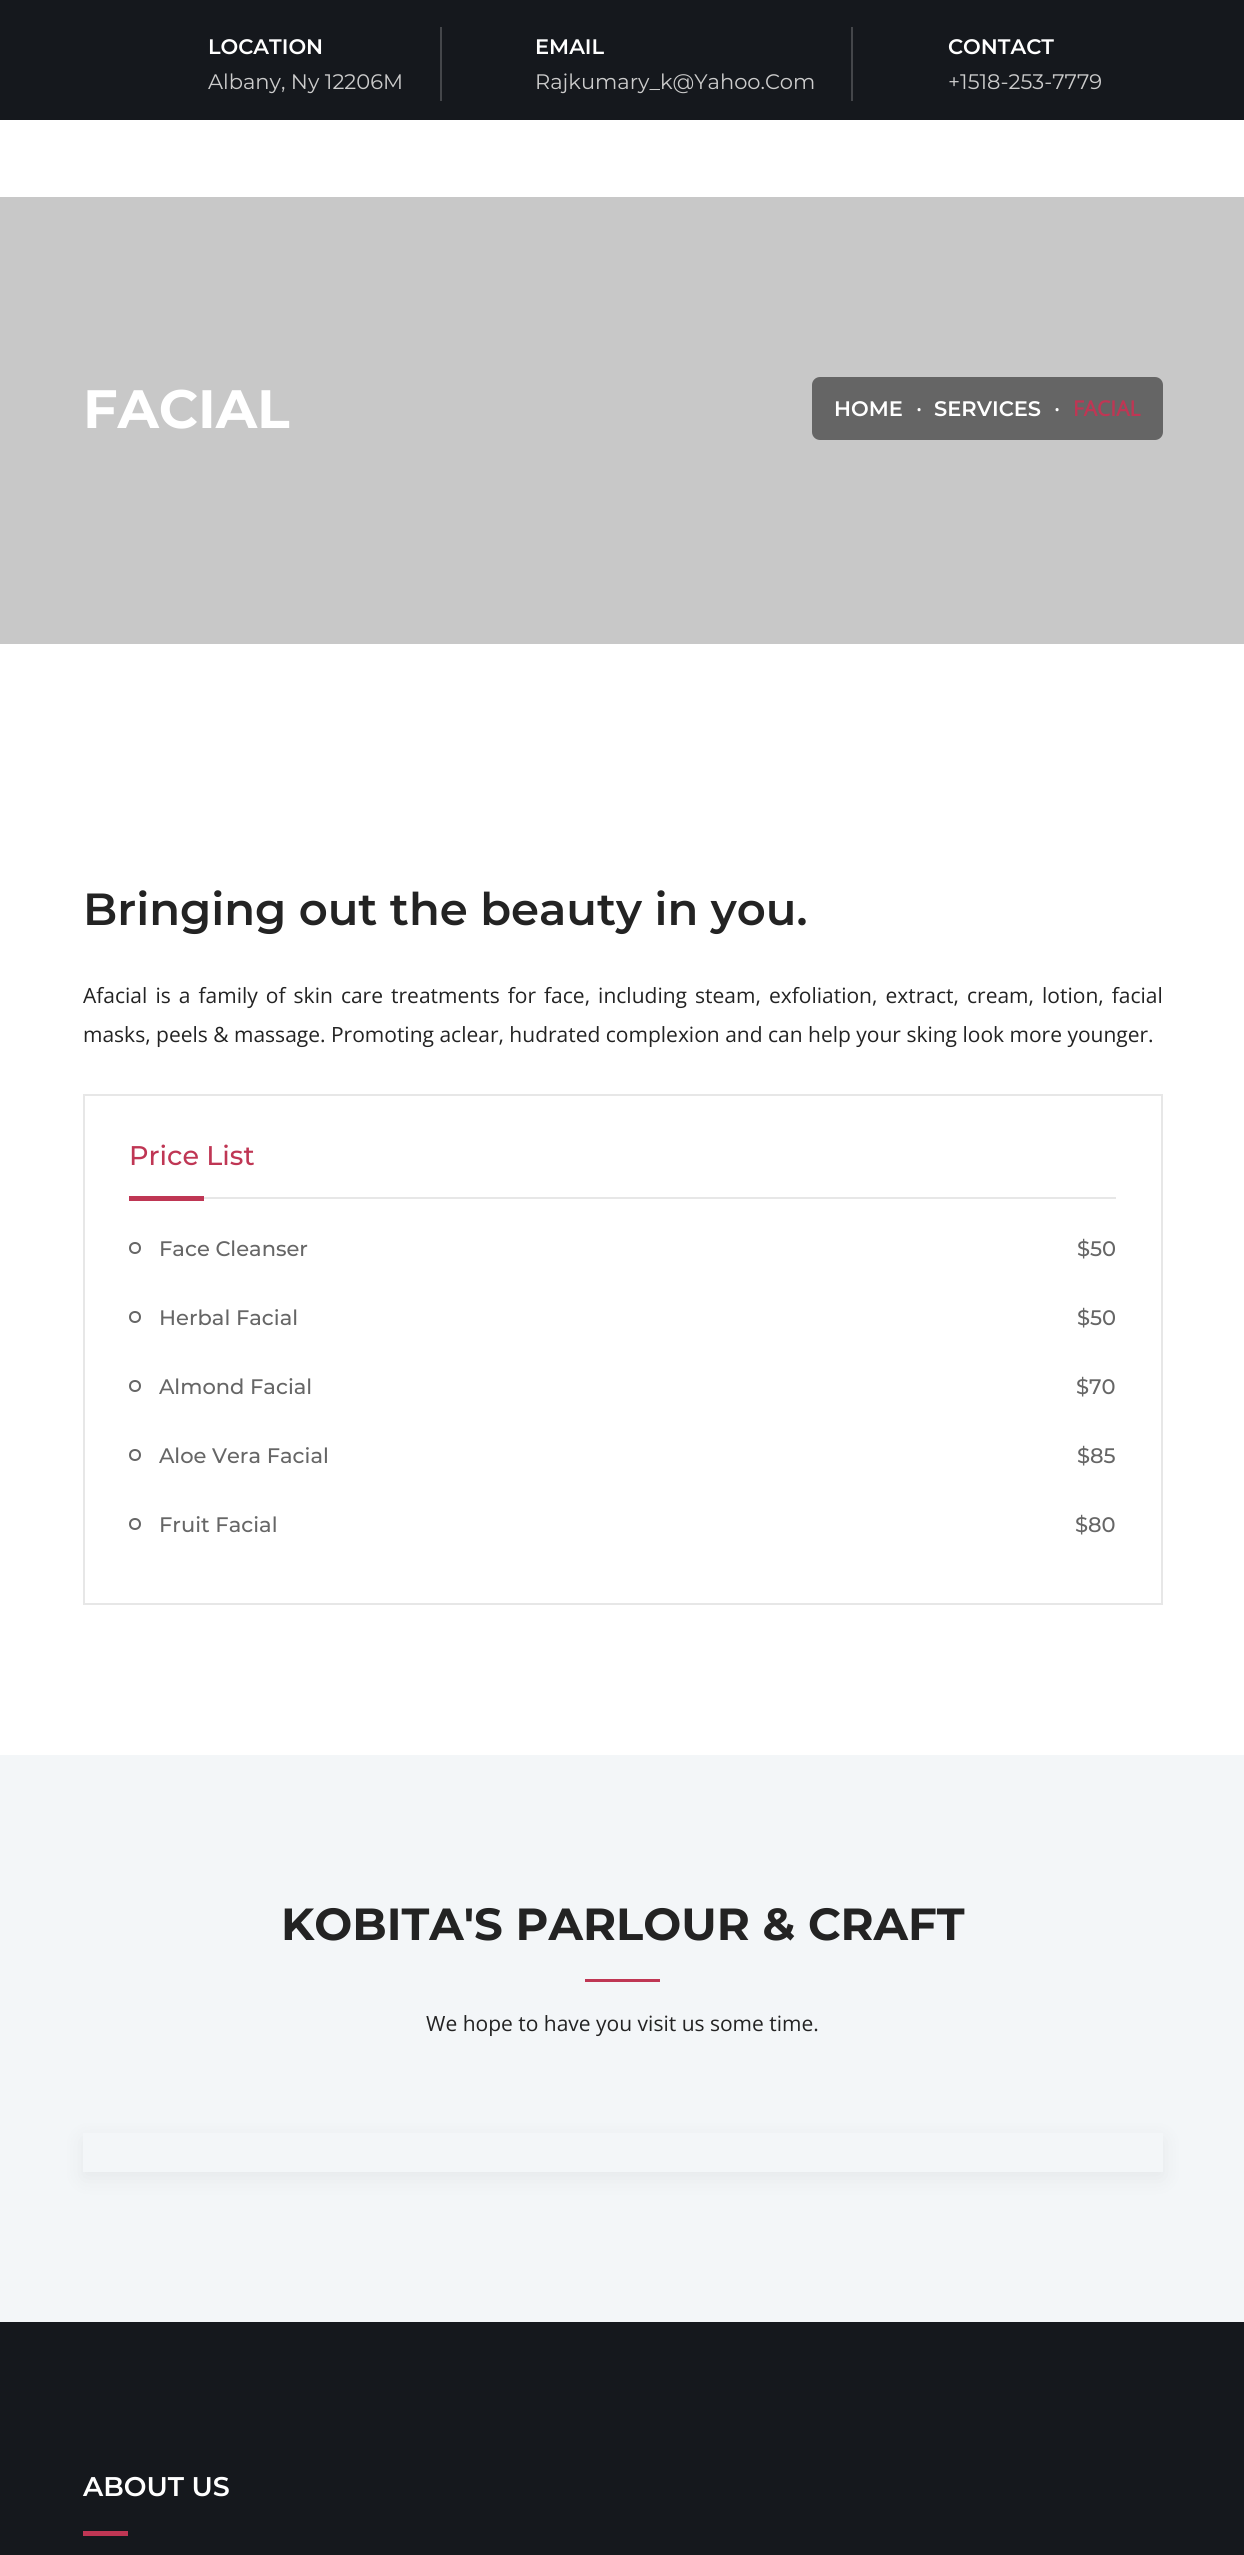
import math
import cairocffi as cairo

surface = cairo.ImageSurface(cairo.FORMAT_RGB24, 1244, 2555)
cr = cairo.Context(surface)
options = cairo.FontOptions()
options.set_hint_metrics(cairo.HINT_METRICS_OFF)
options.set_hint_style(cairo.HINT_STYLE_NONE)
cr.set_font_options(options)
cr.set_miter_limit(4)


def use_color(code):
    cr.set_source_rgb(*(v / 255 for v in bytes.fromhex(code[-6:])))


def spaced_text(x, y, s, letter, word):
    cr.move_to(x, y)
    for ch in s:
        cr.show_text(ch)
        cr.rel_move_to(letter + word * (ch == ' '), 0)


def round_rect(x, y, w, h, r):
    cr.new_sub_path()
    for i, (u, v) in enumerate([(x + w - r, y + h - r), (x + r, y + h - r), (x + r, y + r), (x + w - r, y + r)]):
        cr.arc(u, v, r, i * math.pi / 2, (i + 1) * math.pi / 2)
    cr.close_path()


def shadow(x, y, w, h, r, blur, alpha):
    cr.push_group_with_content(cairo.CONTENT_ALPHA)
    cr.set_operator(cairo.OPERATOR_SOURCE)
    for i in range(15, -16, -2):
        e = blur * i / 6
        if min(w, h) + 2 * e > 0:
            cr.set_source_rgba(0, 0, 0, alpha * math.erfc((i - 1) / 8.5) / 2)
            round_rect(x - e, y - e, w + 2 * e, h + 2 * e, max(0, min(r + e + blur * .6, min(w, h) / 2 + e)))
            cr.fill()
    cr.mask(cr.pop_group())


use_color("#ffffff")
cr.paint()
use_color("#15181d")
cr.rectangle(0, 0, 1244, 120)
cr.fill()
cr.select_font_face("Montserrat SemiBold")
cr.set_font_size(21)
use_color("#ffffff")
cr.move_to(208, 54)
cr.show_text("LOCATION")
cr.select_font_face("Montserrat")
use_color("#cccccc")
cr.move_to(208, 89)
cr.show_text("Albany, Ny 12206M")
use_color("#44464a")
cr.rectangle(440, 27, 2, 74)
cr.fill()
cr.select_font_face("Montserrat SemiBold")
use_color("#ffffff")
cr.move_to(535, 54)
cr.show_text("EMAIL")
cr.select_font_face("Montserrat")
use_color("#cccccc")
cr.move_to(535, 89)
cr.show_text("Rajkumary_k@Yahoo.Com")
use_color("#44464a")
cr.rectangle(851, 27, 2, 74)
cr.fill()
cr.select_font_face("Montserrat SemiBold")
use_color("#ffffff")
cr.move_to(948, 54)
cr.show_text("CONTACT")
cr.select_font_face("Montserrat")
use_color("#cccccc")
cr.move_to(948, 89)
cr.show_text("+1518-253-7779")
use_color("#c8c8c8")
cr.rectangle(0, 197, 1244, 447)
cr.fill()
cr.select_font_face("Montserrat", cairo.FONT_SLANT_NORMAL, cairo.FONT_WEIGHT_BOLD)
cr.set_font_size(54)
use_color("#ffffff")
cr.move_to(83, 428)
cr.show_text("FACIAL")
use_color("#656565")
round_rect(812, 377, 351, 63, 8)
cr.fill()
cr.select_font_face("Montserrat SemiBold")
cr.set_font_size(21)
use_color("#ffffff")
cr.move_to(834, 416)
cr.show_text("HOME")
cr.select_font_face("Open Sans", cairo.FONT_SLANT_NORMAL, cairo.FONT_WEIGHT_BOLD)
cr.move_to(916, 411)
cr.show_text(".")
cr.select_font_face("Montserrat SemiBold")
cr.move_to(934, 416)
cr.show_text("SERVICES")
cr.select_font_face("Open Sans", cairo.FONT_SLANT_NORMAL, cairo.FONT_WEIGHT_BOLD)
cr.move_to(1054, 411)
cr.show_text(".")
use_color("#bf3654")
cr.move_to(1073, 416)
cr.show_text("FACIAL")
cr.select_font_face("Montserrat SemiBold")
cr.set_font_size(45)
use_color("#232323")
cr.move_to(83, 925)
cr.show_text("Bringing out the beauty in you.")
cr.select_font_face("Open Sans")
cr.set_font_size(21)
spaced_text(83, 1003, "Afacial is a family of skin care treatments for face, including steam, exfoliation, extract, cream, lotion, facial", 0, 2.6)
cr.move_to(83, 1042)
cr.show_text("masks, peels & massage. Promoting aclear, hudrated complexion and can help your sking look more younger.")
cr.rectangle(84, 1095, 1078, 509)
use_color("#e7e7e7")
cr.stroke()
cr.rectangle(204, 1197, 912, 2)
cr.fill()
cr.select_font_face("Montserrat Medium")
cr.set_font_size(27)
use_color("#bf3654")
cr.move_to(129, 1165)
cr.show_text("Price List")
cr.rectangle(129, 1196, 75, 5)
cr.fill()
cr.arc(135, 1248, 5, 0, 2 * math.pi)
use_color("#666666")
cr.stroke()
cr.set_font_size(21)
cr.move_to(159, 1256)
cr.show_text("Face Cleanser")
cr.move_to(1077, 1256)
cr.show_text("$50")
cr.new_path()
cr.arc(135, 1317, 5, 0, 2 * math.pi)
cr.stroke()
cr.move_to(159, 1325)
cr.show_text("Herbal Facial")
cr.move_to(1077, 1325)
cr.show_text("$50")
cr.new_path()
cr.arc(135, 1386, 5, 0, 2 * math.pi)
cr.stroke()
cr.move_to(159, 1394)
cr.show_text("Almond Facial")
cr.move_to(1076, 1394)
cr.show_text("$70")
cr.new_path()
cr.arc(135, 1455, 5, 0, 2 * math.pi)
cr.stroke()
cr.move_to(159, 1463)
cr.show_text("Aloe Vera Facial")
cr.move_to(1077, 1463)
cr.show_text("$85")
cr.new_path()
cr.arc(135, 1524, 5, 0, 2 * math.pi)
cr.stroke()
cr.move_to(159, 1532)
cr.show_text("Fruit Facial")
cr.move_to(1075, 1532)
cr.show_text("$80")
use_color("#f3f6f8")
cr.rectangle(0, 1755, 1244, 567)
cr.fill()
cr.select_font_face("Montserrat", cairo.FONT_SLANT_NORMAL, cairo.FONT_WEIGHT_BOLD)
cr.set_font_size(45)
use_color("#232323")
cr.move_to(281, 1940)
cr.show_text("KOBITA'S PARLOUR & CRAFT")
use_color("#bf3654")
cr.rectangle(585, 1979, 75, 3)
cr.fill()
cr.select_font_face("Open Sans")
cr.set_font_size(21)
use_color("#232323")
cr.move_to(426, 2031)
cr.show_text("We hope to have you visit us some time.")
cr.save()
cr.set_fill_rule(cairo.FILL_RULE_EVEN_ODD)
cr.new_path()
cr.move_to(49, 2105)
cr.line_to(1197, 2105)
cr.line_to(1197, 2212)
cr.line_to(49, 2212)
cr.close_path()
cr.move_to(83, 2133)
cr.line_to(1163, 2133)
cr.line_to(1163, 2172)
cr.line_to(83, 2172)
cr.close_path()
cr.clip()
use_color("#000000")
shadow(83, 2139, 1080, 39, 0, 11, 0.06)
cr.restore()
use_color("#15181d")
cr.rectangle(0, 2322, 1244, 233)
cr.fill()
cr.select_font_face("Montserrat SemiBold")
cr.set_font_size(27)
use_color("#ffffff")
cr.move_to(83, 2496)
cr.show_text("ABOUT US")
use_color("#bf3654")
cr.rectangle(83, 2531, 45, 5)
cr.fill()
surface.write_to_png("result.png")
